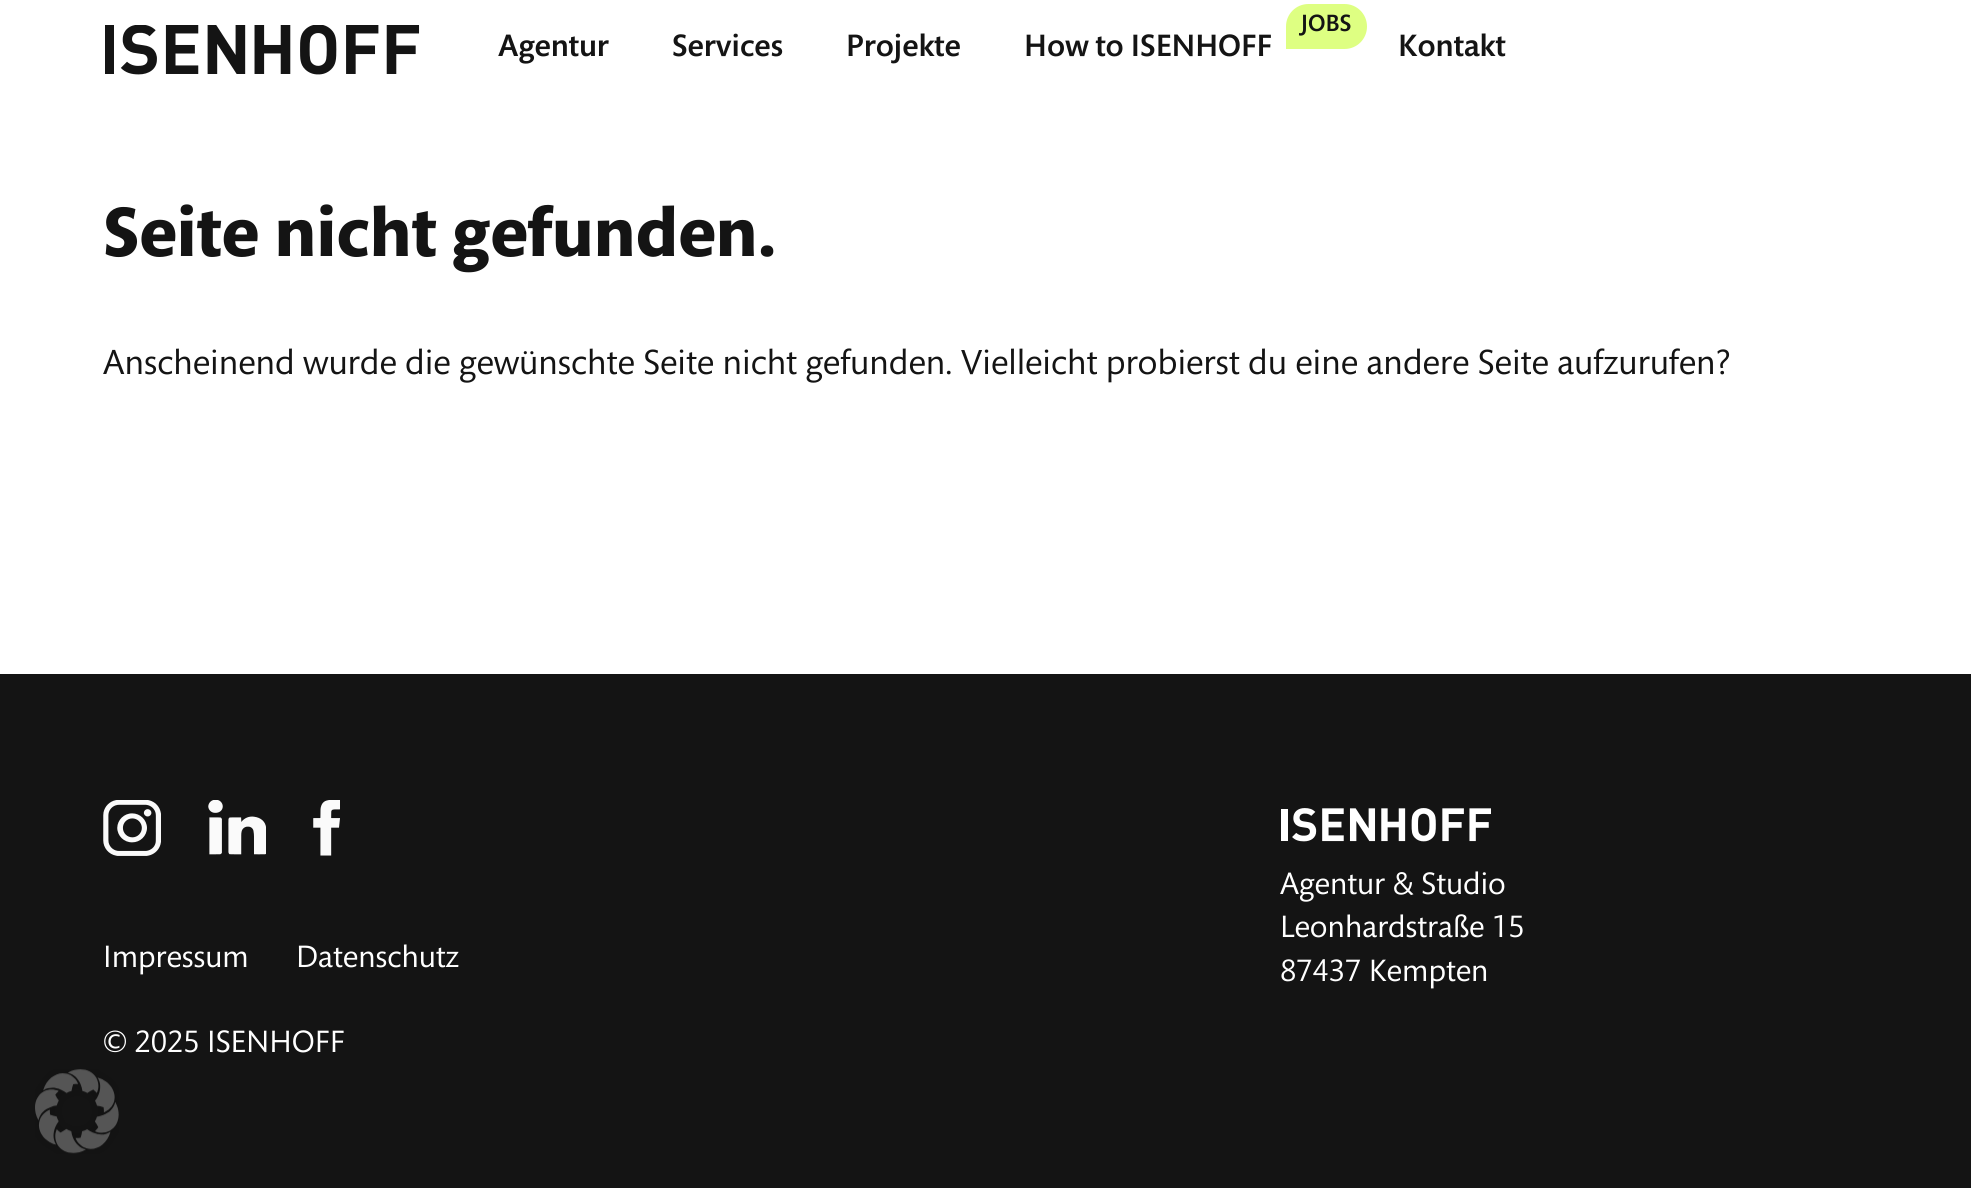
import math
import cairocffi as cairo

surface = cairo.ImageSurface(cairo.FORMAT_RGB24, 1971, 1188)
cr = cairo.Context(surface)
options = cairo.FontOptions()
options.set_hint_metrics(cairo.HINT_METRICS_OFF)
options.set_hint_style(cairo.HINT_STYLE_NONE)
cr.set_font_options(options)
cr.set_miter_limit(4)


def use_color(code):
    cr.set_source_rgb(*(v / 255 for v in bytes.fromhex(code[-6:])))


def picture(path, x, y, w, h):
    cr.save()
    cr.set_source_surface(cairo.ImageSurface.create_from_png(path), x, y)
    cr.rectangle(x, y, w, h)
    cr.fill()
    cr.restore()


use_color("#ffffff")
cr.paint()
picture("img1.png", 105, 25, 315, 50)
cr.select_font_face("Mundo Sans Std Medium")
cr.set_font_size(31.5)
use_color("#141414")
cr.move_to(498, 56)
cr.show_text("Agentur")
cr.move_to(672, 56)
cr.show_text("Services")
cr.move_to(846, 56)
cr.show_text("Projekte")
use_color("#deff82")
cr.new_path()
cr.move_to(1308.5, 4)
cr.line_to(1344.5, 4)
cr.curve_to(1357, 4, 1367, 14, 1367, 26.5)
cr.curve_to(1367, 39, 1357, 49, 1344.5, 49)
cr.line_to(1286, 49)
cr.line_to(1286, 26.5)
cr.curve_to(1286, 14, 1296, 4, 1308.5, 4)
cr.close_path()
cr.fill()
cr.set_font_size(24)
use_color("#141414")
cr.move_to(1301, 31)
cr.show_text("JOBS")
cr.set_font_size(31.5)
cr.move_to(1024, 56)
cr.show_text("How to ISENHOFF")
cr.move_to(1398, 56)
cr.show_text("Kontakt")
cr.select_font_face("Mundo Sans Std", cairo.FONT_SLANT_NORMAL, cairo.FONT_WEIGHT_BOLD)
cr.set_font_size(70.9)
cr.move_to(103, 256)
cr.show_text("Seite nicht gefunden.")
cr.select_font_face("Mundo Sans Std")
cr.set_font_size(35.45)
cr.move_to(103, 374)
cr.show_text("Anscheinend wurde die gewünschte Seite nicht gefunden. Vielleicht probierst du eine andere Seite aufzurufen?")
cr.rectangle(0, 674, 1971, 514)
cr.fill()
picture("img2.png", 103, 800, 58, 56)
picture("img3.png", 208, 800, 58, 55)
picture("img4.png", 313, 800, 27, 56)
cr.set_font_size(31.5)
use_color("#ffffff")
cr.move_to(103, 967)
cr.show_text("Impressum")
cr.move_to(296, 967)
cr.show_text("Datenschutz")
cr.move_to(103, 1052)
cr.show_text("© 2025 ISENHOFF")
picture("img5.png", 1281, 808, 210, 34)
cr.move_to(1280, 894)
cr.show_text("Agentur & Studio")
cr.move_to(1280, 937)
cr.show_text("Leonhardstraße 15")
cr.move_to(1280, 981)
cr.show_text("87437 Kempten")
picture("img6.png", 35, 1069, 84, 85)
surface.write_to_png("result.png")
